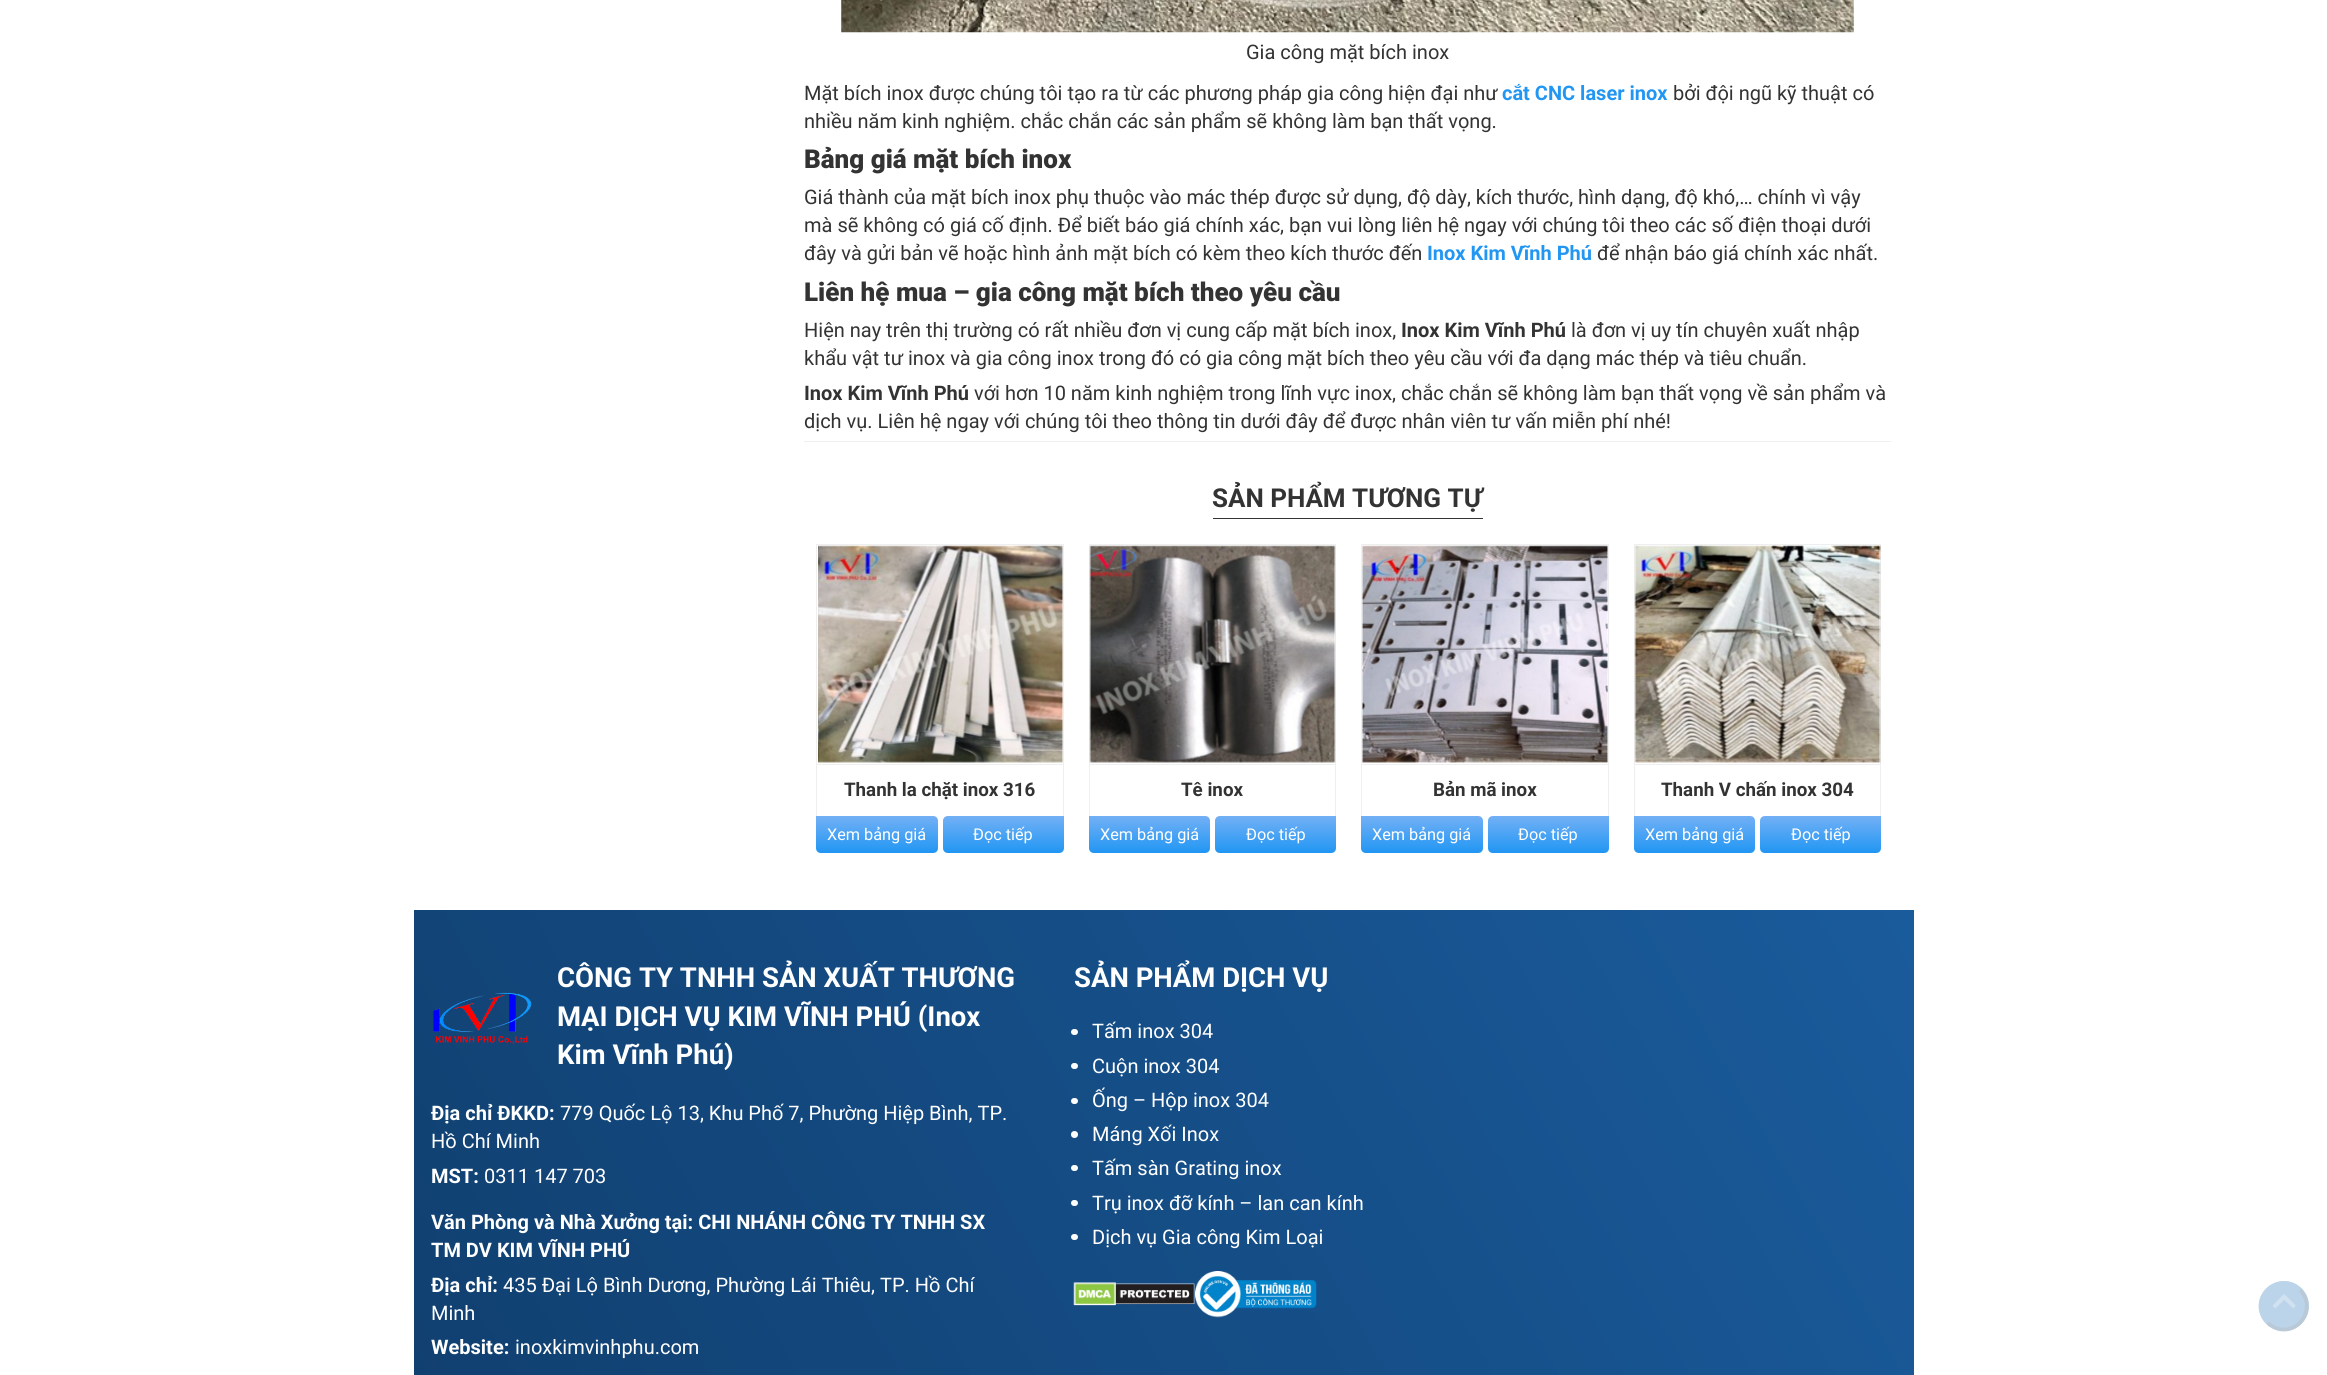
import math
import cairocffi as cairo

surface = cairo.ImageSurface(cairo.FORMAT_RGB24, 2327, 1375)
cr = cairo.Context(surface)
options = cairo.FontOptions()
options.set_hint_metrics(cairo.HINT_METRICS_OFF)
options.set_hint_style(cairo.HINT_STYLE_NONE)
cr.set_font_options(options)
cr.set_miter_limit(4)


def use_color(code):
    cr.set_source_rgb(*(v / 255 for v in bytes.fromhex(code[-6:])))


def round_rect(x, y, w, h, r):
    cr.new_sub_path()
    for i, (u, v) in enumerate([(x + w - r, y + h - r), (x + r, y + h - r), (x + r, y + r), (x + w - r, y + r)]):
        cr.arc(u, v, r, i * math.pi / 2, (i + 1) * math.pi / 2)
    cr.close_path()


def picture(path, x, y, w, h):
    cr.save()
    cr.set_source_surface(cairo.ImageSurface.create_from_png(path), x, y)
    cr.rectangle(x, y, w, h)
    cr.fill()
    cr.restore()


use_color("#ffffff")
cr.paint()
picture("img1.png", 841, 0, 1013, 33)
cr.select_font_face("Roboto")
cr.set_font_size(20)
use_color("#333333")
cr.move_to(1246, 59)
cr.show_text("Gia công mặt bích inox")
cr.move_to(804, 100)
cr.show_text("Mặt bích inox được chúng tôi tạo ra từ các phương pháp gia công hiện đại như")
cr.select_font_face("Roboto", cairo.FONT_SLANT_NORMAL, cairo.FONT_WEIGHT_BOLD)
use_color("#2196f3")
cr.move_to(1502, 100)
cr.show_text("cắt CNC laser inox")
cr.select_font_face("Roboto")
use_color("#333333")
cr.move_to(1673, 100)
cr.show_text("bởi đội ngũ kỹ thuật có")
cr.move_to(804, 128)
cr.show_text("nhiều năm kinh nghiệm. chắc chắn các sản phẩm sẽ không làm bạn thất vọng.")
cr.select_font_face("Roboto Black")
cr.set_font_size(26)
cr.move_to(804, 168)
cr.show_text("Bảng giá mặt bích inox")
cr.select_font_face("Roboto")
cr.set_font_size(20)
cr.move_to(804, 204)
cr.show_text("Giá thành của mặt bích inox phụ thuộc vào mác thép được sử dụng, độ dày, kích thước, hình dạng, độ khó,… chính vì vậy")
cr.move_to(804, 232)
cr.show_text("mà sẽ không có giá cố định. Để biết báo giá chính xác, bạn vui lòng liên hệ ngay với chúng tôi theo các số điện thoại dưới")
cr.move_to(804, 260)
cr.show_text("đây và gửi bản vẽ hoặc hình ảnh mặt bích có kèm theo kích thước đến")
cr.select_font_face("Roboto", cairo.FONT_SLANT_NORMAL, cairo.FONT_WEIGHT_BOLD)
use_color("#2196f3")
cr.move_to(1427, 260)
cr.show_text("Inox Kim Vĩnh Phú")
cr.select_font_face("Roboto")
use_color("#333333")
cr.move_to(1597, 260)
cr.show_text("để nhận báo giá chính xác nhất.")
cr.select_font_face("Roboto Black")
cr.set_font_size(26)
cr.move_to(804, 301)
cr.show_text("Liên hệ mua – gia công mặt bích theo yêu cầu")
cr.select_font_face("Roboto")
cr.set_font_size(20)
cr.move_to(804, 337)
cr.show_text("Hiện nay trên thị trường có rất nhiều đơn vị cung cấp mặt bích inox,")
cr.select_font_face("Roboto", cairo.FONT_SLANT_NORMAL, cairo.FONT_WEIGHT_BOLD)
cr.move_to(1401, 337)
cr.show_text("Inox Kim Vĩnh Phú")
cr.select_font_face("Roboto")
cr.move_to(1571, 337)
cr.show_text("là đơn vị uy tín chuyên xuất nhập")
cr.move_to(804, 365)
cr.show_text("khẩu vật tư inox và gia công inox trong đó có gia công mặt bích theo yêu cầu với đa dạng mác thép và tiêu chuẩn.")
cr.select_font_face("Roboto", cairo.FONT_SLANT_NORMAL, cairo.FONT_WEIGHT_BOLD)
cr.move_to(804, 400)
cr.show_text("Inox Kim Vĩnh Phú")
cr.select_font_face("Roboto")
cr.move_to(974, 400)
cr.show_text("với hơn 10 năm kinh nghiệm trong lĩnh vực inox, chắc chắn sẽ không làm bạn thất vọng về sản phẩm và")
cr.move_to(804, 428)
cr.show_text("dịch vụ. Liên hệ ngay với chúng tôi theo thông tin dưới đây để được nhân viên tư vấn miễn phí nhé!")
use_color("#efefef")
cr.rectangle(804, 441, 1087, 1)
cr.fill()
use_color("#333333")
cr.rectangle(1213, 518, 270, 1)
cr.fill()
cr.select_font_face("Roboto", cairo.FONT_SLANT_NORMAL, cairo.FONT_WEIGHT_BOLD)
cr.set_font_size(26)
cr.move_to(1212, 507)
cr.show_text("SẢN PHẨM TƯƠNG TỰ")
cr.rectangle(816.5, 544.5, 247, 220)
use_color("#efefef")
cr.set_line_width(1)
cr.stroke()
picture("img2.png", 818, 545, 245, 218)
cr.rectangle(1063, 765, 1, 51)
cr.fill()
cr.rectangle(816, 765, 1, 51)
cr.fill()
cr.set_font_size(18.75)
use_color("#333333")
cr.move_to(844, 796)
cr.show_text("Thanh la chặt inox 316")
gradient = cairo.LinearGradient(877, 853, 877, 816)
gradient.add_color_stop_rgba(0, 0.129, 0.588, 0.953, 1)
gradient.add_color_stop_rgba(1, 0.451, 0.69, 0.961, 1)
cr.set_source(gradient)
cr.new_path()
cr.move_to(816, 816)
cr.line_to(933, 816)
cr.curve_to(936, 816, 938, 818, 938, 821)
cr.line_to(938, 848)
cr.curve_to(938, 851, 936, 853, 933, 853)
cr.line_to(821, 853)
cr.curve_to(818, 853, 816, 851, 816, 848)
cr.close_path()
cr.fill()
cr.select_font_face("Roboto")
cr.set_font_size(16.25)
use_color("#ffffff")
cr.move_to(827, 840)
cr.show_text("Xem bảng giá")
gradient = cairo.LinearGradient(1003, 853, 1003, 816)
gradient.add_color_stop_rgba(0, 0.129, 0.588, 0.953, 1)
gradient.add_color_stop_rgba(1, 0.451, 0.69, 0.961, 1)
cr.set_source(gradient)
cr.new_path()
cr.move_to(948, 816)
cr.line_to(1064, 816)
cr.line_to(1064, 848)
cr.curve_to(1064, 851, 1062, 853, 1059, 853)
cr.line_to(948, 853)
cr.curve_to(945, 853, 943, 851, 943, 848)
cr.line_to(943, 821)
cr.curve_to(943, 818, 945, 816, 948, 816)
cr.close_path()
cr.fill()
use_color("#ffffff")
cr.move_to(973, 840)
cr.show_text("Đọc tiếp")
cr.rectangle(1089.5, 544.5, 246, 220)
use_color("#efefef")
cr.stroke()
picture("img3.png", 1089, 545, 247, 218)
cr.rectangle(1335, 765, 1, 51)
cr.fill()
cr.rectangle(1089, 765, 1, 51)
cr.fill()
cr.select_font_face("Roboto", cairo.FONT_SLANT_NORMAL, cairo.FONT_WEIGHT_BOLD)
cr.set_font_size(18.75)
use_color("#333333")
cr.move_to(1181, 796)
cr.show_text("Tê inox")
gradient = cairo.LinearGradient(1149, 853, 1149, 816)
gradient.add_color_stop_rgba(0, 0.129, 0.588, 0.953, 1)
gradient.add_color_stop_rgba(1, 0.451, 0.69, 0.961, 1)
cr.set_source(gradient)
cr.new_path()
cr.move_to(1089, 816)
cr.line_to(1205, 816)
cr.curve_to(1208, 816, 1210, 818, 1210, 821)
cr.line_to(1210, 848)
cr.curve_to(1210, 851, 1208, 853, 1205, 853)
cr.line_to(1094, 853)
cr.curve_to(1091, 853, 1089, 851, 1089, 848)
cr.close_path()
cr.fill()
cr.select_font_face("Roboto")
cr.set_font_size(16.25)
use_color("#ffffff")
cr.move_to(1100, 840)
cr.show_text("Xem bảng giá")
gradient = cairo.LinearGradient(1276, 853, 1276, 816)
gradient.add_color_stop_rgba(0, 0.129, 0.588, 0.953, 1)
gradient.add_color_stop_rgba(1, 0.451, 0.69, 0.961, 1)
cr.set_source(gradient)
cr.new_path()
cr.move_to(1220, 816)
cr.line_to(1336, 816)
cr.line_to(1336, 848)
cr.curve_to(1336, 851, 1334, 853, 1331, 853)
cr.line_to(1220, 853)
cr.curve_to(1217, 853, 1215, 851, 1215, 848)
cr.line_to(1215, 821)
cr.curve_to(1215, 818, 1217, 816, 1220, 816)
cr.close_path()
cr.fill()
use_color("#ffffff")
cr.move_to(1246, 840)
cr.show_text("Đọc tiếp")
cr.rectangle(1361.5, 544.5, 247, 220)
use_color("#efefef")
cr.stroke()
picture("img4.png", 1362, 545, 246, 218)
cr.rectangle(1608, 765, 1, 51)
cr.fill()
cr.rectangle(1361, 765, 1, 51)
cr.fill()
cr.select_font_face("Roboto", cairo.FONT_SLANT_NORMAL, cairo.FONT_WEIGHT_BOLD)
cr.set_font_size(18.75)
use_color("#333333")
cr.move_to(1433, 796)
cr.show_text("Bản mã inox")
gradient = cairo.LinearGradient(1422, 853, 1422, 816)
gradient.add_color_stop_rgba(0, 0.129, 0.588, 0.953, 1)
gradient.add_color_stop_rgba(1, 0.451, 0.69, 0.961, 1)
cr.set_source(gradient)
cr.new_path()
cr.move_to(1361, 816)
cr.line_to(1478, 816)
cr.curve_to(1481, 816, 1483, 818, 1483, 821)
cr.line_to(1483, 848)
cr.curve_to(1483, 851, 1481, 853, 1478, 853)
cr.line_to(1366, 853)
cr.curve_to(1363, 853, 1361, 851, 1361, 848)
cr.close_path()
cr.fill()
cr.select_font_face("Roboto")
cr.set_font_size(16.25)
use_color("#ffffff")
cr.move_to(1372, 840)
cr.show_text("Xem bảng giá")
gradient = cairo.LinearGradient(1548, 853, 1548, 816)
gradient.add_color_stop_rgba(0, 0.129, 0.588, 0.953, 1)
gradient.add_color_stop_rgba(1, 0.451, 0.69, 0.961, 1)
cr.set_source(gradient)
cr.new_path()
cr.move_to(1493, 816)
cr.line_to(1609, 816)
cr.line_to(1609, 848)
cr.curve_to(1609, 851, 1607, 853, 1604, 853)
cr.line_to(1493, 853)
cr.curve_to(1490, 853, 1488, 851, 1488, 848)
cr.line_to(1488, 821)
cr.curve_to(1488, 818, 1490, 816, 1493, 816)
cr.close_path()
cr.fill()
use_color("#ffffff")
cr.move_to(1518, 840)
cr.show_text("Đọc tiếp")
cr.rectangle(1634.5, 544.5, 246, 220)
use_color("#efefef")
cr.stroke()
picture("img5.png", 1634, 545, 247, 218)
cr.rectangle(1880, 765, 1, 51)
cr.fill()
cr.rectangle(1634, 765, 1, 51)
cr.fill()
cr.select_font_face("Roboto", cairo.FONT_SLANT_NORMAL, cairo.FONT_WEIGHT_BOLD)
cr.set_font_size(18.75)
use_color("#333333")
cr.move_to(1661, 796)
cr.show_text("Thanh V chấn inox 304")
gradient = cairo.LinearGradient(1694, 853, 1694, 816)
gradient.add_color_stop_rgba(0, 0.129, 0.588, 0.953, 1)
gradient.add_color_stop_rgba(1, 0.451, 0.69, 0.961, 1)
cr.set_source(gradient)
cr.new_path()
cr.move_to(1634, 816)
cr.line_to(1750, 816)
cr.curve_to(1753, 816, 1755, 818, 1755, 821)
cr.line_to(1755, 848)
cr.curve_to(1755, 851, 1753, 853, 1750, 853)
cr.line_to(1639, 853)
cr.curve_to(1636, 853, 1634, 851, 1634, 848)
cr.close_path()
cr.fill()
cr.select_font_face("Roboto")
cr.set_font_size(16.25)
use_color("#ffffff")
cr.move_to(1645, 840)
cr.show_text("Xem bảng giá")
gradient = cairo.LinearGradient(1821, 853, 1821, 816)
gradient.add_color_stop_rgba(0, 0.129, 0.588, 0.953, 1)
gradient.add_color_stop_rgba(1, 0.451, 0.69, 0.961, 1)
cr.set_source(gradient)
cr.new_path()
cr.move_to(1765, 816)
cr.line_to(1881, 816)
cr.line_to(1881, 848)
cr.curve_to(1881, 851, 1879, 853, 1876, 853)
cr.line_to(1765, 853)
cr.curve_to(1762, 853, 1760, 851, 1760, 848)
cr.line_to(1760, 821)
cr.curve_to(1760, 818, 1762, 816, 1765, 816)
cr.close_path()
cr.fill()
use_color("#ffffff")
cr.move_to(1791, 840)
cr.show_text("Đọc tiếp")
gradient = cairo.LinearGradient(477, 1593, 1850, 800)
gradient.add_color_stop_rgba(0, 0.063, 0.247, 0.435, 1)
gradient.add_color_stop_rgba(1, 0.102, 0.357, 0.612, 1)
cr.set_source(gradient)
cr.rectangle(414, 910, 1500, 465)
cr.fill()
picture("img6.png", 433, 992, 99, 52)
cr.select_font_face("Roboto", cairo.FONT_SLANT_NORMAL, cairo.FONT_WEIGHT_BOLD)
cr.set_font_size(27.5)
use_color("#ffffff")
cr.move_to(557, 987)
cr.show_text("CÔNG TY TNHH SẢN XUẤT THƯƠNG")
cr.move_to(557, 1026)
cr.show_text("MẠI DỊCH VỤ KIM VĨNH PHÚ (Inox")
cr.move_to(557, 1064)
cr.show_text("Kim Vĩnh Phú)")
cr.set_font_size(20)
cr.move_to(431, 1120)
cr.show_text("Địa chỉ ĐKKD:")
cr.select_font_face("Roboto")
cr.move_to(560, 1120)
cr.show_text("779 Quốc Lộ 13, Khu Phố 7, Phường Hiệp Bình, TP.")
cr.move_to(431, 1148)
cr.show_text("Hồ Chí Minh")
cr.select_font_face("Roboto", cairo.FONT_SLANT_NORMAL, cairo.FONT_WEIGHT_BOLD)
cr.move_to(431, 1183)
cr.show_text("MST:")
cr.select_font_face("Roboto")
cr.move_to(484, 1183)
cr.show_text("0311 147 703")
cr.select_font_face("Roboto", cairo.FONT_SLANT_NORMAL, cairo.FONT_WEIGHT_BOLD)
cr.move_to(431, 1229)
cr.show_text("Văn Phòng và Nhà Xưởng tại: CHI NHÁNH CÔNG TY TNHH SX")
cr.move_to(431, 1257)
cr.show_text("TM DV KIM VĨNH PHÚ")
cr.move_to(431, 1292)
cr.show_text("Địa chỉ:")
cr.select_font_face("Roboto")
cr.move_to(503, 1292)
cr.show_text("435 Đại Lộ Bình Dương, Phường Lái Thiêu, TP. Hồ Chí")
cr.move_to(431, 1320)
cr.show_text("Minh")
cr.select_font_face("Roboto", cairo.FONT_SLANT_NORMAL, cairo.FONT_WEIGHT_BOLD)
cr.move_to(431, 1354)
cr.show_text("Website:")
cr.select_font_face("Roboto")
cr.move_to(515, 1354)
cr.show_text("inoxkimvinhphu.com")
cr.select_font_face("Roboto", cairo.FONT_SLANT_NORMAL, cairo.FONT_WEIGHT_BOLD)
cr.set_font_size(27.5)
cr.move_to(1074, 987)
cr.show_text("SẢN PHẨM DỊCH VỤ")
round_rect(1071, 1029, 7, 6, 3)
cr.fill()
cr.select_font_face("Roboto")
cr.set_font_size(20)
cr.move_to(1092, 1038)
cr.show_text("Tấm inox 304")
round_rect(1071, 1063, 7, 6, 3)
cr.fill()
cr.move_to(1092, 1073)
cr.show_text("Cuộn inox 304")
round_rect(1071, 1098, 7, 6, 3)
cr.fill()
cr.move_to(1092, 1107)
cr.show_text("Ống – Hộp inox 304")
cr.new_path()
cr.arc(1074.5, 1134.5, 3.5, 0, 2 * math.pi)
cr.fill()
cr.move_to(1092, 1141)
cr.show_text("Máng Xối Inox")
round_rect(1071, 1165, 7, 6, 3)
cr.fill()
cr.move_to(1092, 1175)
cr.show_text("Tấm sàn Grating inox")
round_rect(1071, 1200, 7, 6, 3)
cr.fill()
cr.move_to(1092, 1210)
cr.show_text("Trụ inox đỡ kính – lan can kính")
round_rect(1071, 1234, 7, 6, 3)
cr.fill()
cr.move_to(1092, 1244)
cr.show_text("Dịch vụ Gia công Kim Loại")
picture("img7.png", 1073, 1282, 122, 24)
picture("img8.png", 1195, 1271, 122, 47)
use_color("#bcd4e9")
cr.arc(2284, 1306, 25, 0, 2 * math.pi)
cr.fill()
cr.new_path()
cr.move_to(2300, 1290)
cr.curve_to(2316, 1306, 2301.5, 1333.5, 2279, 1329)
cr.curve_to(2275, 1328, 2270.5, 1326, 2267.5, 1322.5)
use_color("#b9c9d7")
cr.set_line_width(3.8)
cr.stroke()
cr.new_path()
cr.move_to(2267.5, 1322.5)
cr.curve_to(2264, 1319.5, 2262, 1315, 2261, 1311)
cr.curve_to(2256.5, 1288.5, 2284, 1274, 2300, 1290)
use_color("#bcd4e9")
cr.stroke()
picture("img9.png", 2273, 1294, 23, 14)
surface.write_to_png("result.png")
